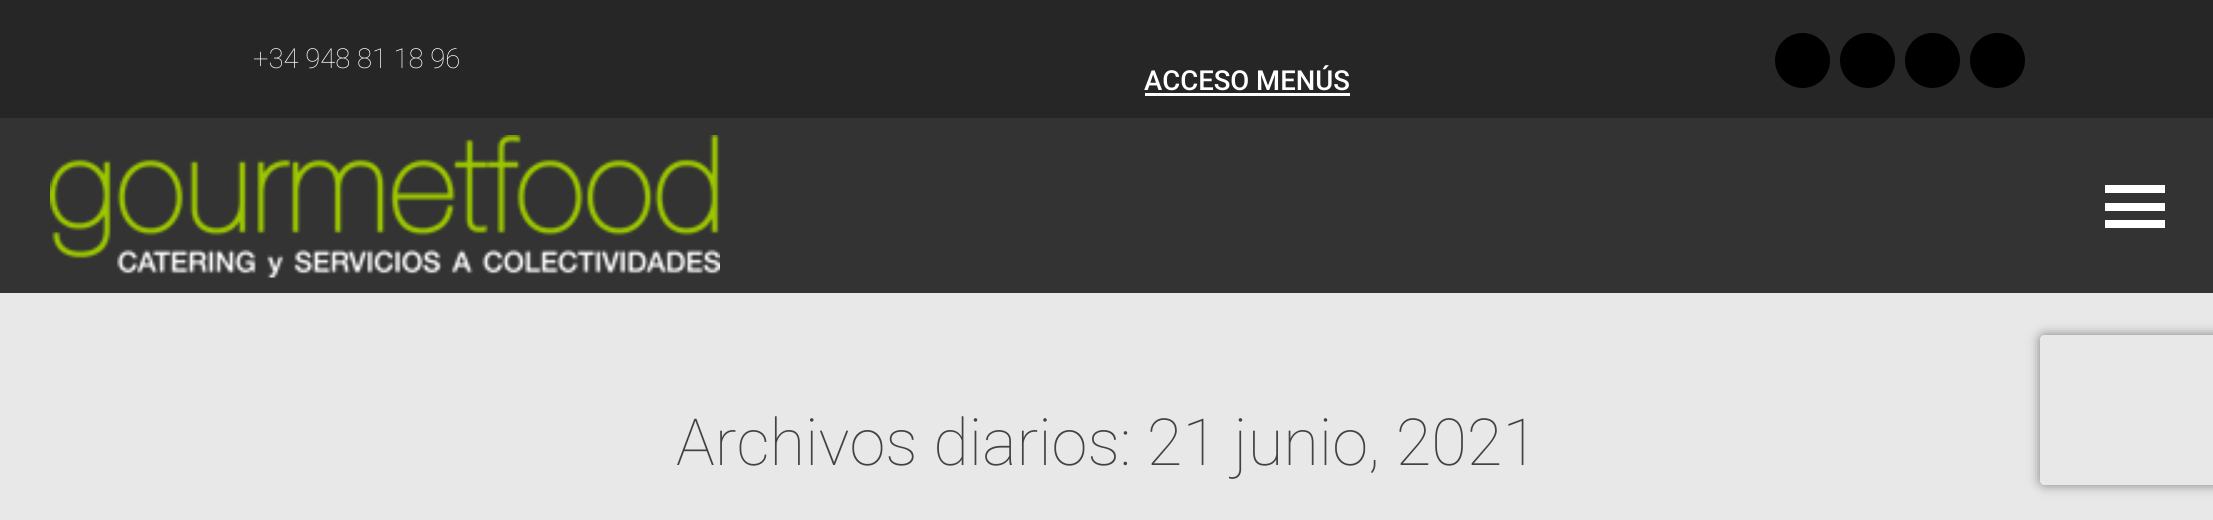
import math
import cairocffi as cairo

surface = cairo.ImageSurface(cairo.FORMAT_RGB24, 2213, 520)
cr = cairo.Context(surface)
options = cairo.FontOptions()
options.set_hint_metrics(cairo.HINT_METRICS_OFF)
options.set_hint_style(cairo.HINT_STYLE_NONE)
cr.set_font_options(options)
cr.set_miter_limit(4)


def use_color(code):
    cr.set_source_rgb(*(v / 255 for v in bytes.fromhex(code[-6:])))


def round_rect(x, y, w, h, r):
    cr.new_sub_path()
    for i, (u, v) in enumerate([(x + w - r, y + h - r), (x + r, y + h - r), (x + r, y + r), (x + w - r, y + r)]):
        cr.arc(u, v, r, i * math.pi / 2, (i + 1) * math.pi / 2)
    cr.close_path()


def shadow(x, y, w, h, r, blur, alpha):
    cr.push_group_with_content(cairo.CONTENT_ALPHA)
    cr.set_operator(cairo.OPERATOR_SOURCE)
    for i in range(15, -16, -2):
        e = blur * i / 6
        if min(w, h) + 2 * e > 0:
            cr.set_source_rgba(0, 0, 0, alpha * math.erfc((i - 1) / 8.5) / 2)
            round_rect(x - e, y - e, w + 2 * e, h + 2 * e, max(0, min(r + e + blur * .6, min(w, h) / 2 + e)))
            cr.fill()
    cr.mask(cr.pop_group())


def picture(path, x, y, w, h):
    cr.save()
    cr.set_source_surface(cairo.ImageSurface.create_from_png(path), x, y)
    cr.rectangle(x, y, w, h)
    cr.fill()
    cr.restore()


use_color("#ffffff")
cr.paint()
cr.set_source_rgba(0, 0, 0, 0.8)
cr.rectangle(0, 118, 2213, 175)
cr.fill()
use_color("#262626")
cr.rectangle(0, 0, 2213, 118)
cr.fill()
cr.select_font_face("Roboto Thin")
cr.set_font_size(27.5)
use_color("#ffffff")
cr.move_to(253, 68)
cr.show_text("+34 948 81 18 96")
cr.select_font_face("Roboto Medium")
cr.move_to(1144, 90)
cr.show_text("ACCESO MENÚS")
cr.rectangle(1145, 93, 205, 3)
cr.fill()
use_color("#000000")
cr.arc(1802.5, 60.5, 27.5, 0, 2 * math.pi)
cr.fill()
cr.arc(1867.5, 60.5, 27.5, 0, 2 * math.pi)
cr.fill()
cr.arc(1932.5, 60.5, 27.5, 0, 2 * math.pi)
cr.fill()
cr.arc(1997.5, 60.5, 27.5, 0, 2 * math.pi)
cr.fill()
picture("img1.png", 50, 135, 670, 143)
use_color("#ffffff")
cr.rectangle(2105, 185, 60, 8)
cr.fill()
cr.rectangle(2105, 203, 60, 8)
cr.fill()
cr.rectangle(2105, 220, 60, 8)
cr.fill()
use_color("#e8e8e8")
cr.rectangle(0, 293, 2213, 227)
cr.fill()
cr.select_font_face("Roboto Thin")
cr.set_font_size(65)
use_color("#424242")
cr.move_to(676, 465)
cr.show_text("Archivos diarios: 21 junio, 2021")
cr.save()
cr.set_fill_rule(cairo.FILL_RULE_EVEN_ODD)
cr.new_path()
cr.move_to(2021, 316)
cr.line_to(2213, 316)
cr.line_to(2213, 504)
cr.line_to(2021, 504)
cr.close_path()
cr.move_to(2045, 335)
cr.line_to(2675, 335)
cr.curve_to(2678, 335, 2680, 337, 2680, 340)
cr.line_to(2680, 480)
cr.curve_to(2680, 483, 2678, 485, 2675, 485)
cr.line_to(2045, 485)
cr.curve_to(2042, 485, 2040, 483, 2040, 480)
cr.line_to(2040, 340)
cr.curve_to(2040, 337, 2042, 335, 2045, 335)
cr.close_path()
cr.clip()
use_color("#808080")
shadow(2040, 335, 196, 150, 5, 6, 1)
cr.restore()
surface.write_to_png("result.png")
